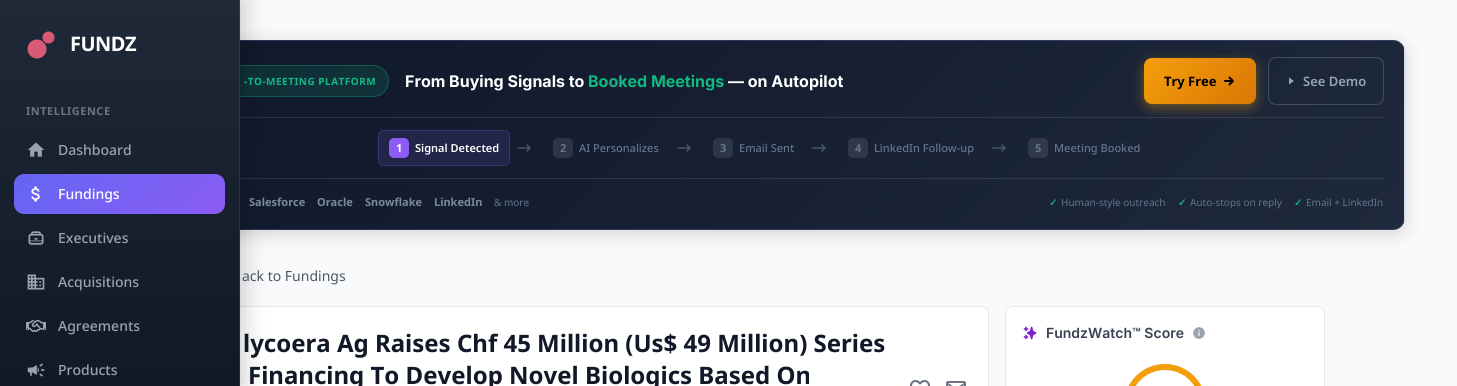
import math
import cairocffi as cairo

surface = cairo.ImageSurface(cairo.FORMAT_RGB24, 1457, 386)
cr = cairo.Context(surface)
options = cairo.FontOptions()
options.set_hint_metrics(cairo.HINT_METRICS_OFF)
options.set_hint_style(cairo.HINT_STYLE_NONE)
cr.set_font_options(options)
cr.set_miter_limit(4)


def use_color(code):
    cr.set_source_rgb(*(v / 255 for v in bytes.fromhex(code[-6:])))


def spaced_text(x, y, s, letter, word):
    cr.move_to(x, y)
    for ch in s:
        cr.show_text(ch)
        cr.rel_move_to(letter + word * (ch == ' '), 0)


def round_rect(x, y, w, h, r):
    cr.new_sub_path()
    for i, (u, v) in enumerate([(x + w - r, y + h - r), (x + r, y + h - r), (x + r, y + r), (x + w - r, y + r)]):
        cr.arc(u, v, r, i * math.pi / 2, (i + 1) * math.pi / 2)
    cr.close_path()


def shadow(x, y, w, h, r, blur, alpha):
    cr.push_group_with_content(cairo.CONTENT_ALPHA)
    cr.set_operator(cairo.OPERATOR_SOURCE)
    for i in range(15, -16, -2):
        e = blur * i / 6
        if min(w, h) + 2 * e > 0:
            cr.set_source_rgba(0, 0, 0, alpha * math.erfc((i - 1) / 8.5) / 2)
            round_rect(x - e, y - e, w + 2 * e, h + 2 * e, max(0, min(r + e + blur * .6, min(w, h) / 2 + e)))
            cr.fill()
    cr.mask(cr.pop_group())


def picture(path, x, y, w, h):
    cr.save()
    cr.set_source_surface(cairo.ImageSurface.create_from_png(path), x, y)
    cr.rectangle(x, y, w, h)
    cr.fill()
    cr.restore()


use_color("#f9fafb")
cr.paint()
use_color("#000000")
shadow(125, 44, 1280, 190, 12, 10, 0.15)
cr.save()
round_rect(125, 40, 1280, 190, 12)
cr.clip()
gradient = cairo.LinearGradient(399, -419, 1132, 313)
gradient.add_color_stop_rgba(0, 0.059, 0.09, 0.165, 1)
gradient.add_color_stop_rgba(1, 0.118, 0.161, 0.231, 1)
cr.set_source(gradient)
cr.rectangle(240, 40, 1164, 1)
cr.fill()
gradient = cairo.LinearGradient(399, -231, 1132, 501)
gradient.add_color_stop_rgba(0, 0.059, 0.09, 0.165, 1)
gradient.add_color_stop_rgba(1, 0.118, 0.161, 0.231, 1)
cr.set_source(gradient)
cr.rectangle(240, 41, 1164, 188)
cr.fill()
cr.restore()
gradient = cairo.LinearGradient(399, -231, 1132, 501)
gradient.add_color_stop_rgba(0, 0.153, 0.18, 0.247, 1)
gradient.add_color_stop_rgba(1, 0.208, 0.243, 0.31, 1)
cr.set_source(gradient)
cr.rectangle(240, 178, 1144, 1)
cr.fill()
cr.rectangle(240, 117, 1144, 1)
cr.fill()
cr.save()
round_rect(125, 40, 1280, 190, 12)
cr.clip()
gradient = cairo.LinearGradient(399, -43, 1132, 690)
gradient.add_color_stop_rgba(0, 0.059, 0.09, 0.165, 1)
gradient.add_color_stop_rgba(1, 0.118, 0.161, 0.231, 1)
cr.set_source(gradient)
cr.rectangle(240, 229, 1164, 1)
cr.fill()
cr.restore()
round_rect(125.5, 40.5, 1279, 189, 11.5)
cr.set_source_rgba(0.525, 0.624, 1, 0.2)
cr.set_line_width(1)
cr.stroke()
cr.set_source_rgba(0.063, 0.725, 0.506, 0.15)
round_rect(146, 65, 243, 32, 16)
cr.fill()
round_rect(146.5, 65.5, 242, 31, 15.5)
cr.set_source_rgba(0.063, 0.725, 0.506, 0.3)
cr.stroke()
use_color("#ffffff")
round_rect(205.5, 306.5, 783, 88, 7.5)
cr.fill_preserve()
use_color("#e5e7eb")
cr.stroke()
use_color("#000000")
shadow(4, 0, 240, 386, 0, 12, 0.2)
gradient = cairo.LinearGradient(119, 0, 120, 386)
gradient.add_color_stop_rgba(0, 0.122, 0.161, 0.216, 1)
gradient.add_color_stop_rgba(1, 0.067, 0.094, 0.153, 1)
cr.set_source(gradient)
cr.rectangle(0, 0, 240, 386)
cr.fill()
cr.set_source_rgba(1, 1, 1, 0.08)
cr.rectangle(239, 0, 1, 386)
cr.fill()
use_color("#d85a74")
cr.arc(37, 49, 9.5, 0, 2 * math.pi)
cr.fill()
cr.arc(48.5, 37.5, 6, 0, 2 * math.pi)
cr.fill()
cr.select_font_face("Noto Sans", cairo.FONT_SLANT_NORMAL, cairo.FONT_WEIGHT_BOLD)
cr.set_font_size(20)
use_color("#ffffff")
spaced_text(70, 51, "FUNDZ", -0.5, 0)
cr.set_font_size(11)
use_color("#6b7280")
spaced_text(26, 115, "INTELLIGENCE", 0.5, 0)
picture("img1.png", 27, 142, 18, 15)
cr.select_font_face("Noto Sans Medium")
cr.set_font_size(14)
use_color("#9ca3af")
cr.move_to(58, 155)
cr.show_text("Dashboard")
gradient = cairo.LinearGradient(57, 131, 182, 257)
gradient.add_color_stop_rgba(0, 0.388, 0.4, 0.945, 1)
gradient.add_color_stop_rgba(1, 0.545, 0.361, 0.965, 1)
cr.set_source(gradient)
round_rect(14, 174, 211, 40, 10)
cr.fill()
picture("img2.png", 31, 186, 9, 16)
use_color("#ffffff")
cr.move_to(58, 199)
cr.show_text("Fundings")
picture("img3.png", 28, 231, 16, 14)
use_color("#9ca3af")
cr.move_to(58, 243)
cr.show_text("Executives")
picture("img4.png", 27, 274, 18, 16)
cr.move_to(58, 287)
cr.show_text("Acquisitions")
picture("img5.png", 26, 320, 20, 12)
cr.move_to(58, 331)
cr.show_text("Agreements")
picture("img6.png", 27, 363, 18, 14)
cr.move_to(58, 375)
cr.show_text("Products")
cr.select_font_face("Noto Sans", cairo.FONT_SLANT_NORMAL, cairo.FONT_WEIGHT_BOLD)
cr.set_font_size(10)
use_color("#10b981")
spaced_text(244, 85, "-TO-MEETING PLATFORM", 0.5, 0)
cr.select_font_face("Inter", cairo.FONT_SLANT_NORMAL, cairo.FONT_WEIGHT_BOLD)
cr.set_font_size(16)
use_color("#ffffff")
cr.move_to(405, 87)
cr.show_text("From Buying Signals to")
use_color("#10b981")
cr.move_to(588, 87)
cr.show_text("Booked Meetings")
use_color("#ffffff")
cr.move_to(728, 87)
cr.show_text("— on Autopilot")
use_color("#f59e0b")
shadow(1144, 62, 112, 46, 8, 6, 0.4)
gradient = cairo.LinearGradient(1161, 42, 1240, 121)
gradient.add_color_stop_rgba(0, 0.961, 0.62, 0.043, 1)
gradient.add_color_stop_rgba(1, 0.851, 0.467, 0.024, 1)
cr.set_source(gradient)
round_rect(1144, 58, 112, 46, 8)
cr.fill()
cr.select_font_face("Noto Sans", cairo.FONT_SLANT_NORMAL, cairo.FONT_WEIGHT_BOLD)
cr.set_font_size(13)
use_color("#000000")
cr.move_to(1164, 86)
cr.show_text("Try Free")
cr.new_path()
cr.move_to(1225, 81)
cr.line_to(1233, 81)
cr.move_to(1233, 81)
cr.line_to(1229.5, 77.5)
cr.move_to(1233, 81)
cr.line_to(1229.5, 84.5)
cr.set_line_width(2)
cr.set_line_cap(cairo.LINE_CAP_ROUND)
cr.set_line_join(cairo.LINE_JOIN_ROUND)
cr.stroke()
round_rect(1268.5, 57.5, 115, 47, 7.5)
use_color("#404c5f")
cr.set_line_width(1)
cr.set_line_cap(cairo.LINE_CAP_BUTT)
cr.set_line_join(cairo.LINE_JOIN_MITER)
cr.stroke()
use_color("#94a3b8")
cr.new_path()
cr.move_to(1289, 77.5)
cr.line_to(1294, 81)
cr.line_to(1289, 84.5)
cr.close_path()
cr.fill()
cr.select_font_face("Noto Sans SemiBold")
cr.move_to(1303, 86)
cr.show_text("See Demo")
use_color("#222448")
round_rect(378, 130, 132, 36, 6)
cr.fill()
round_rect(378.5, 130.5, 131, 35, 5.5)
cr.set_source_rgba(0.545, 0.361, 0.965, 0.25)
cr.stroke()
use_color("#8b5cf6")
round_rect(389, 138, 20, 20, 5)
cr.fill()
cr.select_font_face("Noto Sans", cairo.FONT_SLANT_NORMAL, cairo.FONT_WEIGHT_BOLD)
cr.set_font_size(11)
use_color("#ffffff")
cr.move_to(396, 152)
cr.show_text("1")
cr.select_font_face("Noto Sans SemiBold")
cr.move_to(415, 152)
cr.show_text("Signal Detected")
cr.new_path()
cr.move_to(518, 148)
cr.line_to(530, 148)
cr.move_to(527, 145)
cr.line_to(530, 148)
cr.line_to(527, 151)
use_color("#475569")
cr.set_line_width(1.5)
cr.set_line_cap(cairo.LINE_CAP_ROUND)
cr.set_line_join(cairo.LINE_JOIN_ROUND)
cr.stroke()
use_color("#2c3445")
round_rect(553, 138, 20, 20, 5)
cr.fill()
cr.select_font_face("Noto Sans", cairo.FONT_SLANT_NORMAL, cairo.FONT_WEIGHT_BOLD)
use_color("#64748b")
cr.move_to(560, 152)
cr.show_text("2")
cr.select_font_face("Noto Sans Medium")
cr.move_to(579, 152)
cr.show_text("AI Personalizes")
cr.new_path()
cr.move_to(678, 148)
cr.line_to(690, 148)
cr.move_to(687, 145)
cr.line_to(690, 148)
cr.line_to(687, 151)
use_color("#475569")
cr.stroke()
use_color("#2d3647")
round_rect(713, 138, 20, 20, 5)
cr.fill()
cr.select_font_face("Noto Sans", cairo.FONT_SLANT_NORMAL, cairo.FONT_WEIGHT_BOLD)
use_color("#64748b")
cr.move_to(720, 152)
cr.show_text("3")
cr.select_font_face("Noto Sans Medium")
cr.move_to(739, 152)
cr.show_text("Email Sent")
cr.new_path()
cr.move_to(813, 148)
cr.line_to(825, 148)
cr.move_to(822, 145)
cr.line_to(825, 148)
cr.line_to(822, 151)
use_color("#475569")
cr.stroke()
use_color("#2f3748")
round_rect(848, 138, 20, 20, 5)
cr.fill()
cr.select_font_face("Noto Sans", cairo.FONT_SLANT_NORMAL, cairo.FONT_WEIGHT_BOLD)
use_color("#64748b")
cr.move_to(855, 152)
cr.show_text("4")
cr.select_font_face("Noto Sans Medium")
cr.move_to(874, 152)
cr.show_text("LinkedIn Follow-up")
cr.new_path()
cr.move_to(993, 148)
cr.line_to(1005, 148)
cr.move_to(1002, 145)
cr.line_to(1005, 148)
cr.line_to(1002, 151)
use_color("#475569")
cr.stroke()
use_color("#30394a")
round_rect(1028, 138, 20, 20, 5)
cr.fill()
cr.select_font_face("Noto Sans", cairo.FONT_SLANT_NORMAL, cairo.FONT_WEIGHT_BOLD)
use_color("#64748b")
cr.move_to(1035, 152)
cr.show_text("5")
cr.select_font_face("Noto Sans Medium")
cr.move_to(1054, 152)
cr.show_text("Meeting Booked")
cr.select_font_face("Noto Sans", cairo.FONT_SLANT_NORMAL, cairo.FONT_WEIGHT_BOLD)
use_color("#7a889c")
cr.move_to(249, 206)
cr.show_text("Salesforce")
cr.move_to(317, 206)
cr.show_text("Oracle")
cr.move_to(365, 206)
cr.show_text("Snowflake")
cr.move_to(434, 206)
cr.show_text("LinkedIn")
cr.select_font_face("Noto Sans")
cr.set_font_size(10)
use_color("#64748b")
cr.move_to(494, 206)
cr.show_text("& more")
cr.select_font_face("DejaVu Sans", cairo.FONT_SLANT_NORMAL, cairo.FONT_WEIGHT_BOLD)
use_color("#10b981")
cr.move_to(1049, 206)
cr.show_text("✓")
cr.select_font_face("Noto Sans")
use_color("#64748b")
cr.move_to(1061, 206)
cr.show_text("Human-style outreach")
cr.select_font_face("DejaVu Sans", cairo.FONT_SLANT_NORMAL, cairo.FONT_WEIGHT_BOLD)
use_color("#10b981")
cr.move_to(1178, 206)
cr.show_text("✓")
cr.select_font_face("Noto Sans")
use_color("#64748b")
cr.move_to(1190, 206)
cr.show_text("Auto-stops on reply")
cr.select_font_face("DejaVu Sans", cairo.FONT_SLANT_NORMAL, cairo.FONT_WEIGHT_BOLD)
use_color("#10b981")
cr.move_to(1294, 206)
cr.show_text("✓")
cr.select_font_face("Noto Sans")
use_color("#64748b")
cr.move_to(1306, 206)
cr.show_text("Email + LinkedIn")
cr.set_font_size(14)
use_color("#4b5563")
cr.move_to(242, 281)
cr.show_text("ack to Fundings")
cr.select_font_face("Noto Sans", cairo.FONT_SLANT_NORMAL, cairo.FONT_WEIGHT_BOLD)
cr.set_font_size(24)
use_color("#111827")
cr.move_to(243, 352)
cr.show_text("lycoera Ag Raises Chf 45 Million (Us$ 49 Million) Series")
cr.move_to(248, 384)
cr.show_text("Financing To Develop Novel Biologics Based On")
picture("img7.png", 910, 380, 20, 6)
picture("img8.png", 946, 381, 20, 5)
round_rect(1005.5, 306.5, 319, 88, 7.5)
use_color("#e5e7eb")
cr.set_line_width(1)
cr.set_line_cap(cairo.LINE_CAP_BUTT)
cr.set_line_join(cairo.LINE_JOIN_MITER)
cr.stroke()
cr.save()
round_rect(1006, 307, 318, 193, 7)
cr.clip()
use_color("#ffffff")
cr.new_path()
cr.move_to(1013, 307)
cr.line_to(1317, 307)
cr.curve_to(1321, 307, 1324, 310, 1324, 314)
cr.line_to(1324, 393)
cr.line_to(1006, 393)
cr.line_to(1006, 314)
cr.curve_to(1006, 310, 1009, 307, 1013, 307)
cr.close_path()
cr.fill()
cr.restore()
picture("img9.png", 1023, 326, 14, 14)
cr.select_font_face("Inter SemiBold")
cr.set_font_size(14)
use_color("#374151")
cr.move_to(1046, 338)
cr.show_text("FundzWatch™ Score")
picture("img10.png", 1193, 327, 12, 12)
cr.arc(1165, 405, 38, 0, 2 * math.pi)
use_color("#e5e7eb")
cr.set_line_width(6)
cr.stroke()
cr.new_path()
cr.move_to(1127, 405)
cr.curve_to(1127, 384, 1144, 367, 1165, 367)
cr.curve_to(1186, 367, 1203, 384, 1203, 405)
cr.curve_to(1203, 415, 1199, 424, 1192.5, 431)
use_color("#f59e0b")
cr.stroke()
surface.write_to_png("result.png")
